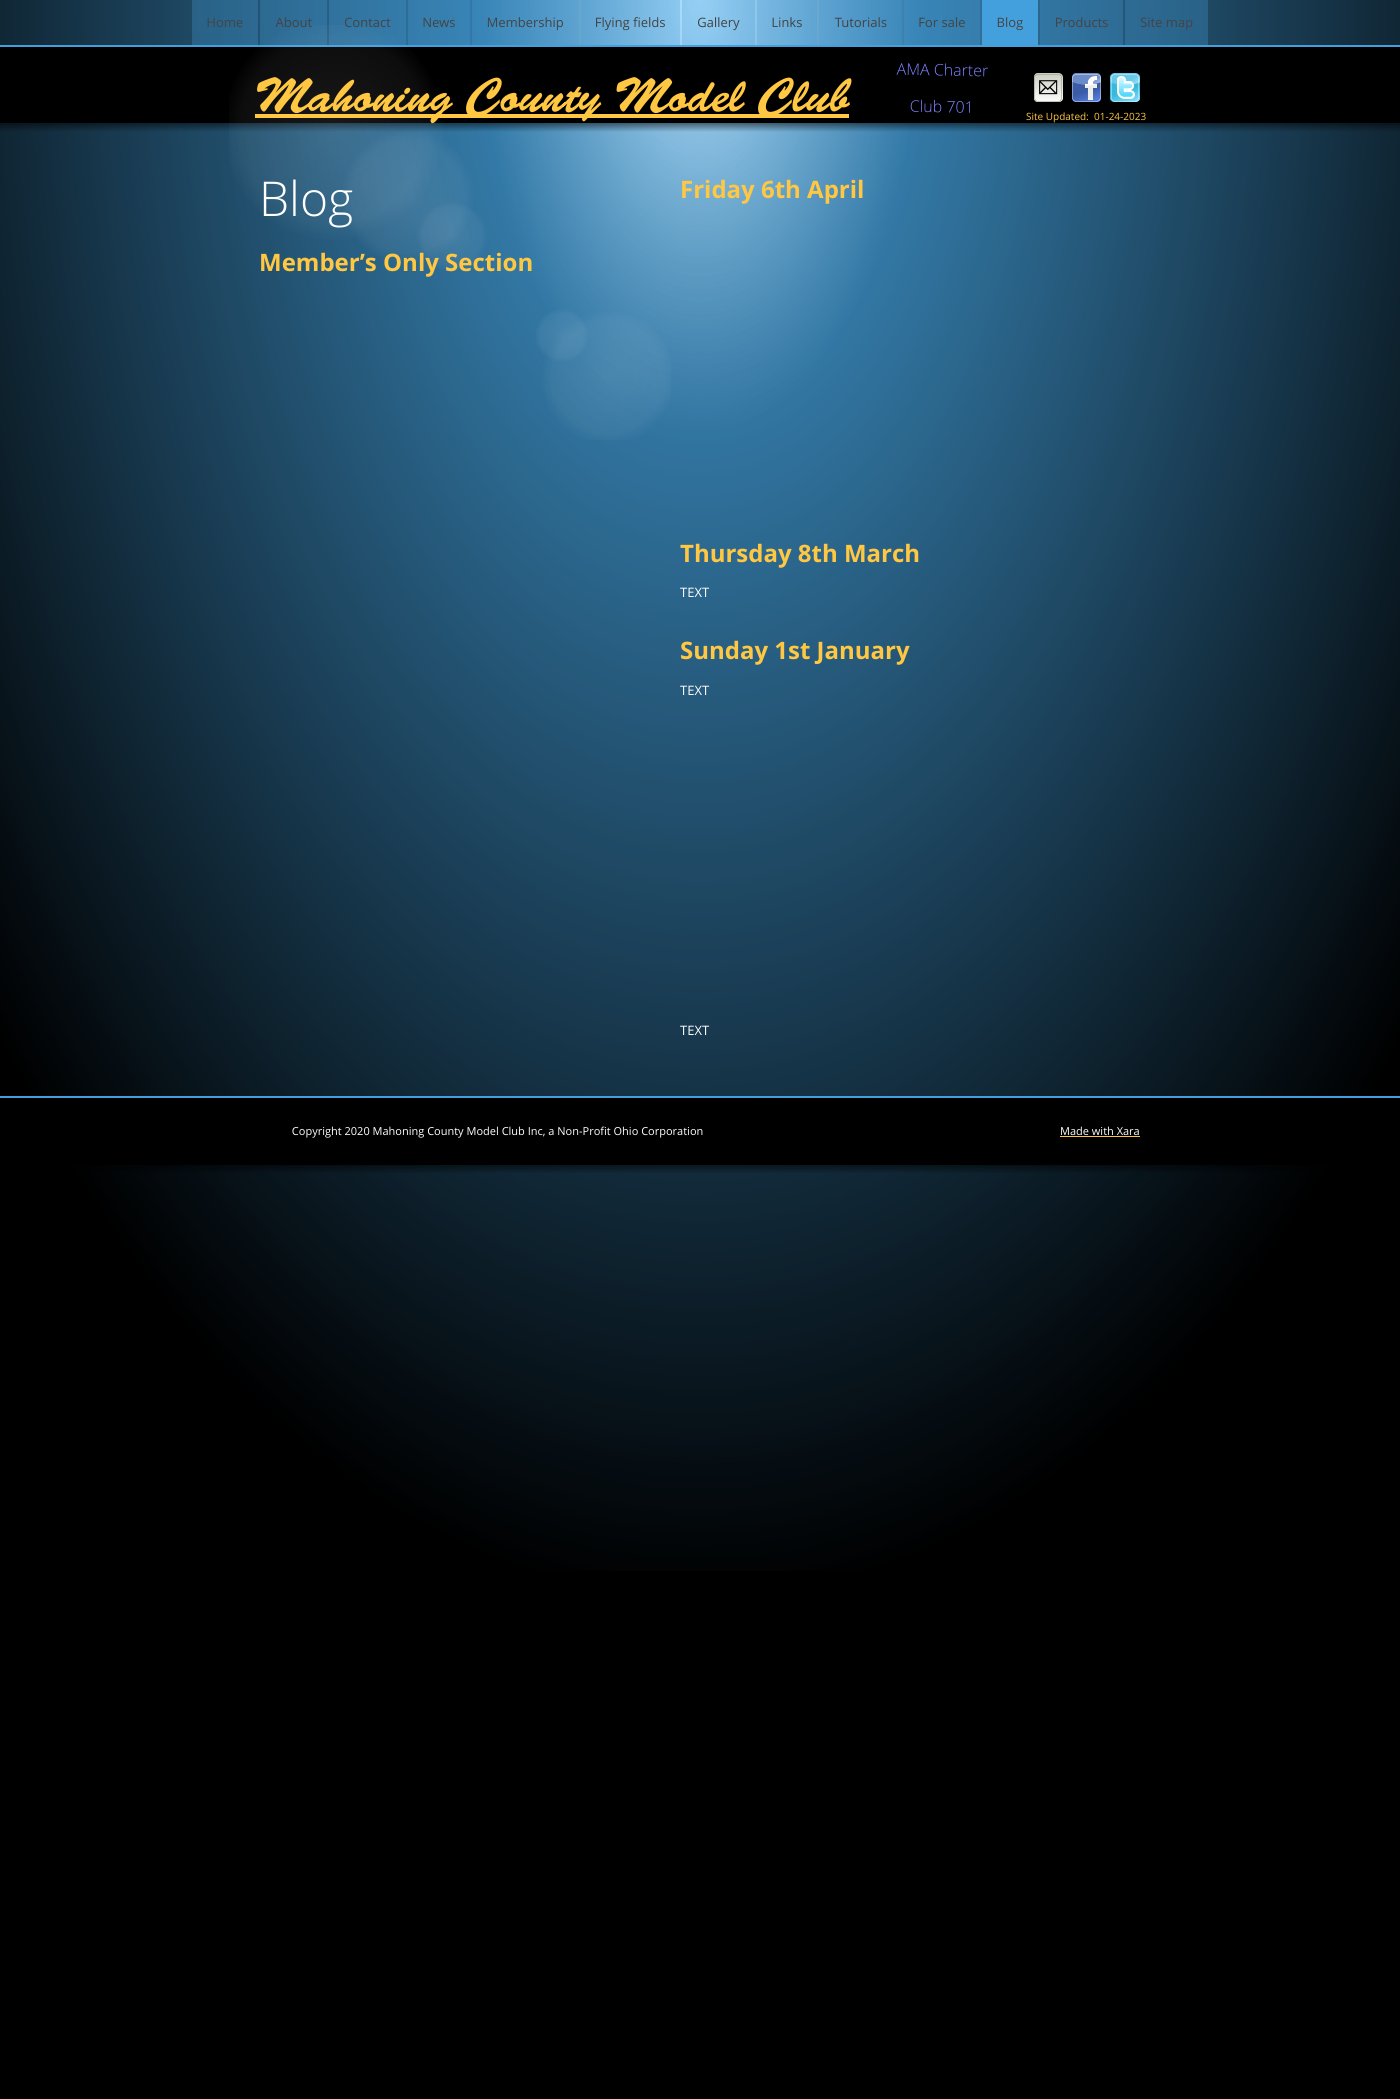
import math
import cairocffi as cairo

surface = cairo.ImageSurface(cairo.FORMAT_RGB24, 1400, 2099)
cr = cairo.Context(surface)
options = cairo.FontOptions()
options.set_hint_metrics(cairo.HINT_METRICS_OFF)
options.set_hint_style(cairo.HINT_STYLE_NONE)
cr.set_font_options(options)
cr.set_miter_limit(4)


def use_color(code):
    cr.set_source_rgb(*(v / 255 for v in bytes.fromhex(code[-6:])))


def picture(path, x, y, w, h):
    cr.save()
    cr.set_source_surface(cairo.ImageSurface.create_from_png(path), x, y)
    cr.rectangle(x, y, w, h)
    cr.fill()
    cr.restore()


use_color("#000000")
cr.paint()
picture("img1.png", 0, 0, 1400, 1571)
use_color("#44a0dc")
cr.rectangle(0, 45, 1400, 2)
cr.fill()
use_color("#000000")
cr.rectangle(0, 47, 1400, 76)
cr.fill()
picture("img2.png", 0, 123, 1400, 9)
picture("img3.png", 0, 1096, 1400, 77)
picture("img17.png", 229, 25, 442, 415)
picture("img4.png", 192, 0, 66, 45)
picture("img5.png", 260, 0, 67, 45)
picture("img6.png", 329, 0, 77, 45)
picture("img7.png", 408, 0, 62, 45)
picture("img8.png", 472, 0, 107, 45)
picture("img9.png", 581, 0, 99, 45)
picture("img10.png", 682, 0, 73, 45)
picture("img11.png", 757, 0, 60, 45)
picture("img12.png", 819, 0, 83, 45)
picture("img13.png", 904, 0, 76, 45)
picture("img14.png", 982, 0, 56, 45)
picture("img15.png", 1040, 0, 83, 45)
picture("img16.png", 1125, 0, 83, 45)
use_color("#ffc742")
cr.rectangle(255, 114, 594, 4)
cr.fill()
cr.select_font_face("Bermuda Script")
cr.set_font_size(48)
cr.move_to(255, 111)
cr.show_text("Mahoning County Model Club")
picture("img18.png", 896, 63, 92, 50)
picture("img19.png", 1034, 73, 29, 29)
picture("img20.png", 1072, 73, 29, 29)
picture("img21.png", 1110, 73, 30, 29)
cr.select_font_face("Open Sans")
cr.set_font_size(10)
cr.move_to(1026, 120)
cr.show_text("Site Updated:  01-24-2023")
cr.select_font_face("Open Sans Light")
cr.set_font_size(48)
use_color("#ffffff")
cr.move_to(259, 216)
cr.show_text("Blog")
cr.select_font_face("Open Sans", cairo.FONT_SLANT_NORMAL, cairo.FONT_WEIGHT_BOLD)
cr.set_font_size(24)
use_color("#ffc742")
cr.move_to(259, 271)
cr.show_text("Member’s Only Section")
cr.move_to(680, 198)
cr.show_text("Friday 6th April")
cr.move_to(680, 562)
cr.show_text("Thursday 8th March")
cr.select_font_face("Open Sans")
cr.set_font_size(13)
use_color("#ffffff")
cr.move_to(680, 597)
cr.show_text("TEXT")
cr.select_font_face("Open Sans", cairo.FONT_SLANT_NORMAL, cairo.FONT_WEIGHT_BOLD)
cr.set_font_size(24)
use_color("#ffc742")
cr.move_to(680, 659)
cr.show_text("Sunday 1st January")
cr.select_font_face("Open Sans")
cr.set_font_size(13)
use_color("#ffffff")
cr.move_to(680, 695)
cr.show_text("TEXT")
cr.move_to(680, 1035)
cr.show_text("TEXT")
cr.set_font_size(11)
cr.move_to(277, 1135)
cr.show_text("©  Copyright 2020 Mahoning County Model Club Inc, a Non-Profit Ohio Corporation")
cr.move_to(1060, 1135)
cr.show_text("Made with Xara")
use_color("#ffc742")
cr.rectangle(1060, 1136, 80, 1)
cr.fill()
surface.write_to_png("result.png")
